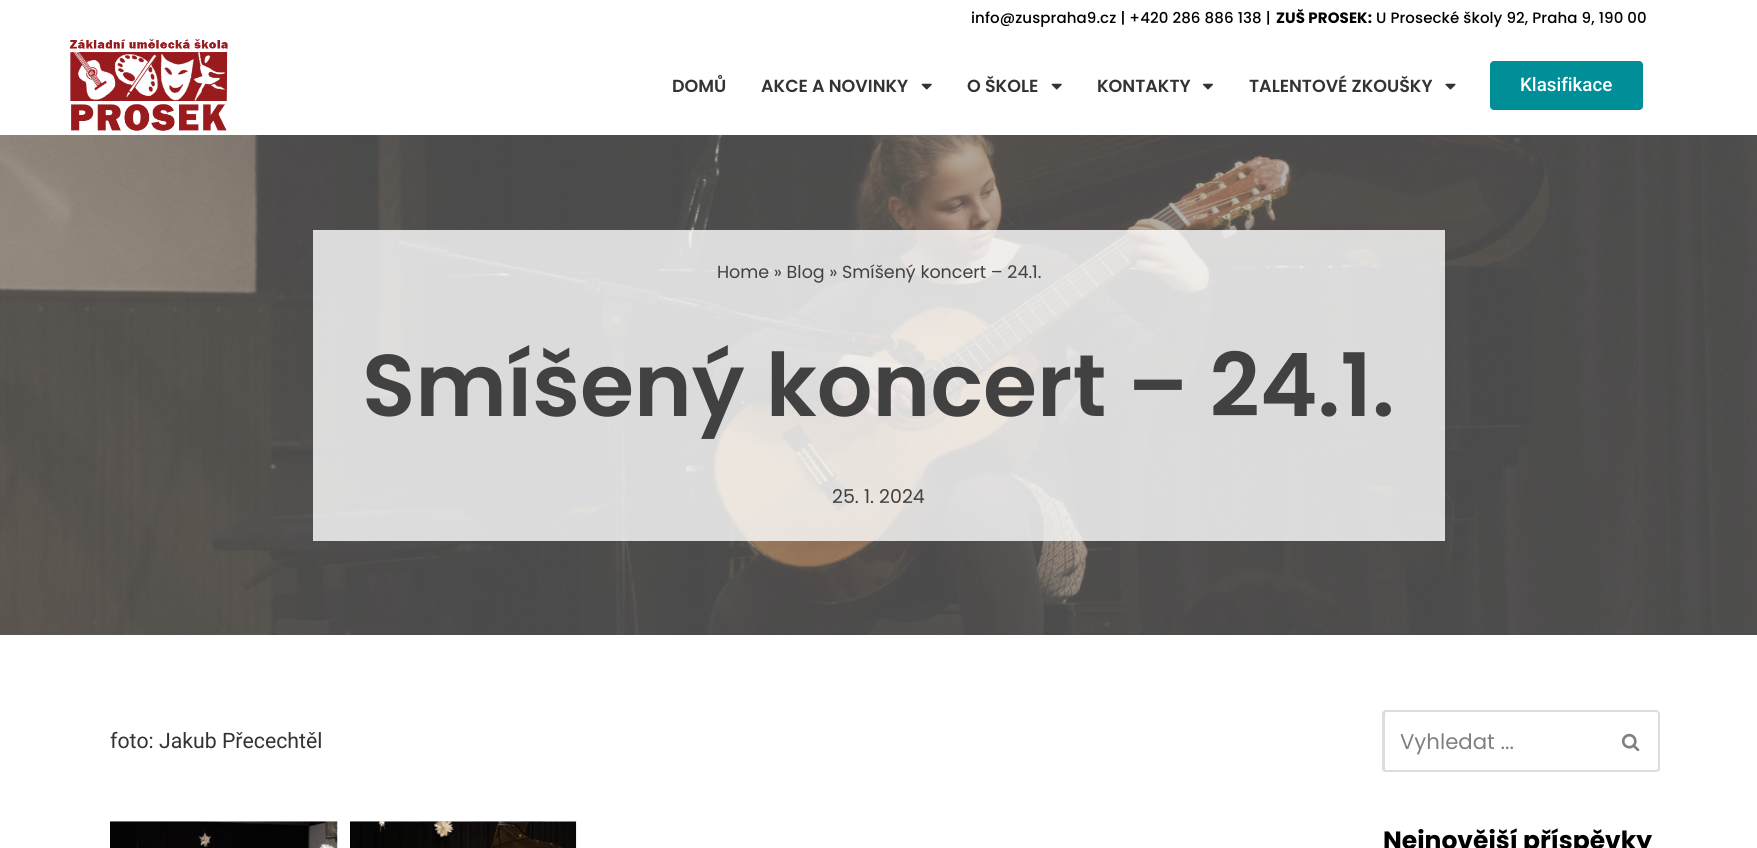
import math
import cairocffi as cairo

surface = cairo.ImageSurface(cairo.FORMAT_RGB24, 1757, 848)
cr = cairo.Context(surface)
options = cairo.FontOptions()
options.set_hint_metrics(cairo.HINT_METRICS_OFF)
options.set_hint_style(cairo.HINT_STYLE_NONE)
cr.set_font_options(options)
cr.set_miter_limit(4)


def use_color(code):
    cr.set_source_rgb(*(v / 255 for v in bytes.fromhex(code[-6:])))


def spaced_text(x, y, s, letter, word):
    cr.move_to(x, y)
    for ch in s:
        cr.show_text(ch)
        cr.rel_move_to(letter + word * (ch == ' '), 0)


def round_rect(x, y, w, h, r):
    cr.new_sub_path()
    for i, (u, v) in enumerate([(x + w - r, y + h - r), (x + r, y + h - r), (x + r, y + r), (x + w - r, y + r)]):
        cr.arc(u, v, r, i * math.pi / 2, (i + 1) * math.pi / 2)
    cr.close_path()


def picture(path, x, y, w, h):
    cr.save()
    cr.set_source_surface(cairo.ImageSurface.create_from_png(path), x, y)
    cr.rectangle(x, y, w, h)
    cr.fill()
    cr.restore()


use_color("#ffffff")
cr.paint()
cr.select_font_face("Poppins Medium")
cr.set_font_size(15)
use_color("#000000")
spaced_text(971, 23, "info@zuspraha9.cz | +420 286 886 138 |", 0.1, 0)
cr.select_font_face("Poppins", cairo.FONT_SLANT_NORMAL, cairo.FONT_WEIGHT_BOLD)
spaced_text(1276, 23, "ZUŠ PROSEK:", 0.1, 0)
cr.select_font_face("Poppins Medium")
spaced_text(1376, 23, "U Prosecké školy 92, Praha 9, 190 00", 0.1, 0)
picture("img1.png", 69, 39, 159, 92)
cr.select_font_face("Poppins SemiBold")
cr.set_font_size(17.5)
use_color("#333333")
cr.move_to(672, 92)
cr.show_text("DOMŮ")
cr.move_to(761, 92)
cr.show_text("AKCE A NOVINKY")
picture("img2.png", 921, 83, 11, 7)
cr.move_to(967, 92)
cr.show_text("O ŠKOLE")
picture("img2.png", 1051, 83, 11, 7)
cr.move_to(1097, 92)
cr.show_text("KONTAKTY")
picture("img3.png", 1202, 83, 11, 7)
cr.move_to(1249, 92)
cr.show_text("TALENTOVÉ ZKOUŠKY")
picture("img4.png", 1445, 83, 11, 7)
use_color("#008e98")
round_rect(1490, 61, 153, 49, 4)
cr.fill()
cr.select_font_face("Roboto Medium")
cr.set_font_size(18.75)
use_color("#ffffff")
cr.move_to(1520, 91)
cr.show_text("Klasifikace")
picture("img5.png", 0, 135, 1757, 500)
cr.set_source_rgba(1, 1, 1, 0.8)
cr.rectangle(313, 230, 1132, 311)
cr.fill()
cr.select_font_face("Poppins")
cr.set_font_size(17.5)
use_color("#414141")
cr.move_to(717, 278)
cr.show_text("Home » Blog » Smíšený koncert – 24.1.")
cr.select_font_face("Poppins SemiBold")
cr.set_font_size(87.5)
cr.move_to(362, 416)
cr.show_text("Smíšený koncert – 24.1.")
cr.select_font_face("Poppins")
cr.set_font_size(19)
cr.move_to(832, 503)
cr.show_text("25. 1. 2024")
cr.select_font_face("Roboto")
cr.set_font_size(21.25)
use_color("#333333")
cr.move_to(110, 748)
cr.show_text("foto: Jakub Přecechtěl")
picture("img6.png", 110, 821, 228, 27)
picture("img7.png", 350, 821, 227, 27)
use_color("#dddddd")
cr.set_fill_rule(cairo.FILL_RULE_EVEN_ODD)
cr.new_path()
cr.move_to(1386, 710)
cr.line_to(1604, 710)
cr.line_to(1604, 772)
cr.line_to(1386, 772)
cr.curve_to(1384, 772, 1382, 771, 1382, 769)
cr.line_to(1382, 714)
cr.curve_to(1382, 712, 1384, 710, 1386, 710)
cr.close_path()
cr.move_to(1386, 712)
cr.line_to(1604, 712)
cr.line_to(1604, 770)
cr.line_to(1386, 770)
cr.curve_to(1386, 770, 1385, 769, 1385, 769)
cr.line_to(1385, 714)
cr.curve_to(1385, 713, 1386, 712, 1386, 712)
cr.close_path()
cr.fill()
cr.select_font_face("Poppins")
use_color("#808080")
cr.move_to(1400, 749)
cr.show_text("Vyhledat ...")
use_color("#dddddd")
cr.new_path()
cr.move_to(1604, 710)
cr.line_to(1656, 710)
cr.curve_to(1658, 710, 1660, 712, 1660, 714)
cr.line_to(1660, 769)
cr.curve_to(1660, 771, 1658, 772, 1656, 772)
cr.line_to(1604, 772)
cr.close_path()
cr.move_to(1604, 712)
cr.line_to(1656, 712)
cr.curve_to(1657, 712, 1658, 713, 1658, 714)
cr.line_to(1658, 769)
cr.curve_to(1658, 769, 1657, 770, 1656, 770)
cr.line_to(1604, 770)
cr.close_path()
cr.fill()
picture("img8.png", 1621, 733, 19, 18)
cr.select_font_face("Poppins", cairo.FONT_SLANT_NORMAL, cairo.FONT_WEIGHT_BOLD)
cr.set_font_size(25)
use_color("#000000")
cr.move_to(1383, 849)
cr.show_text("Nejnovější příspěvky")
surface.write_to_png("result.png")
